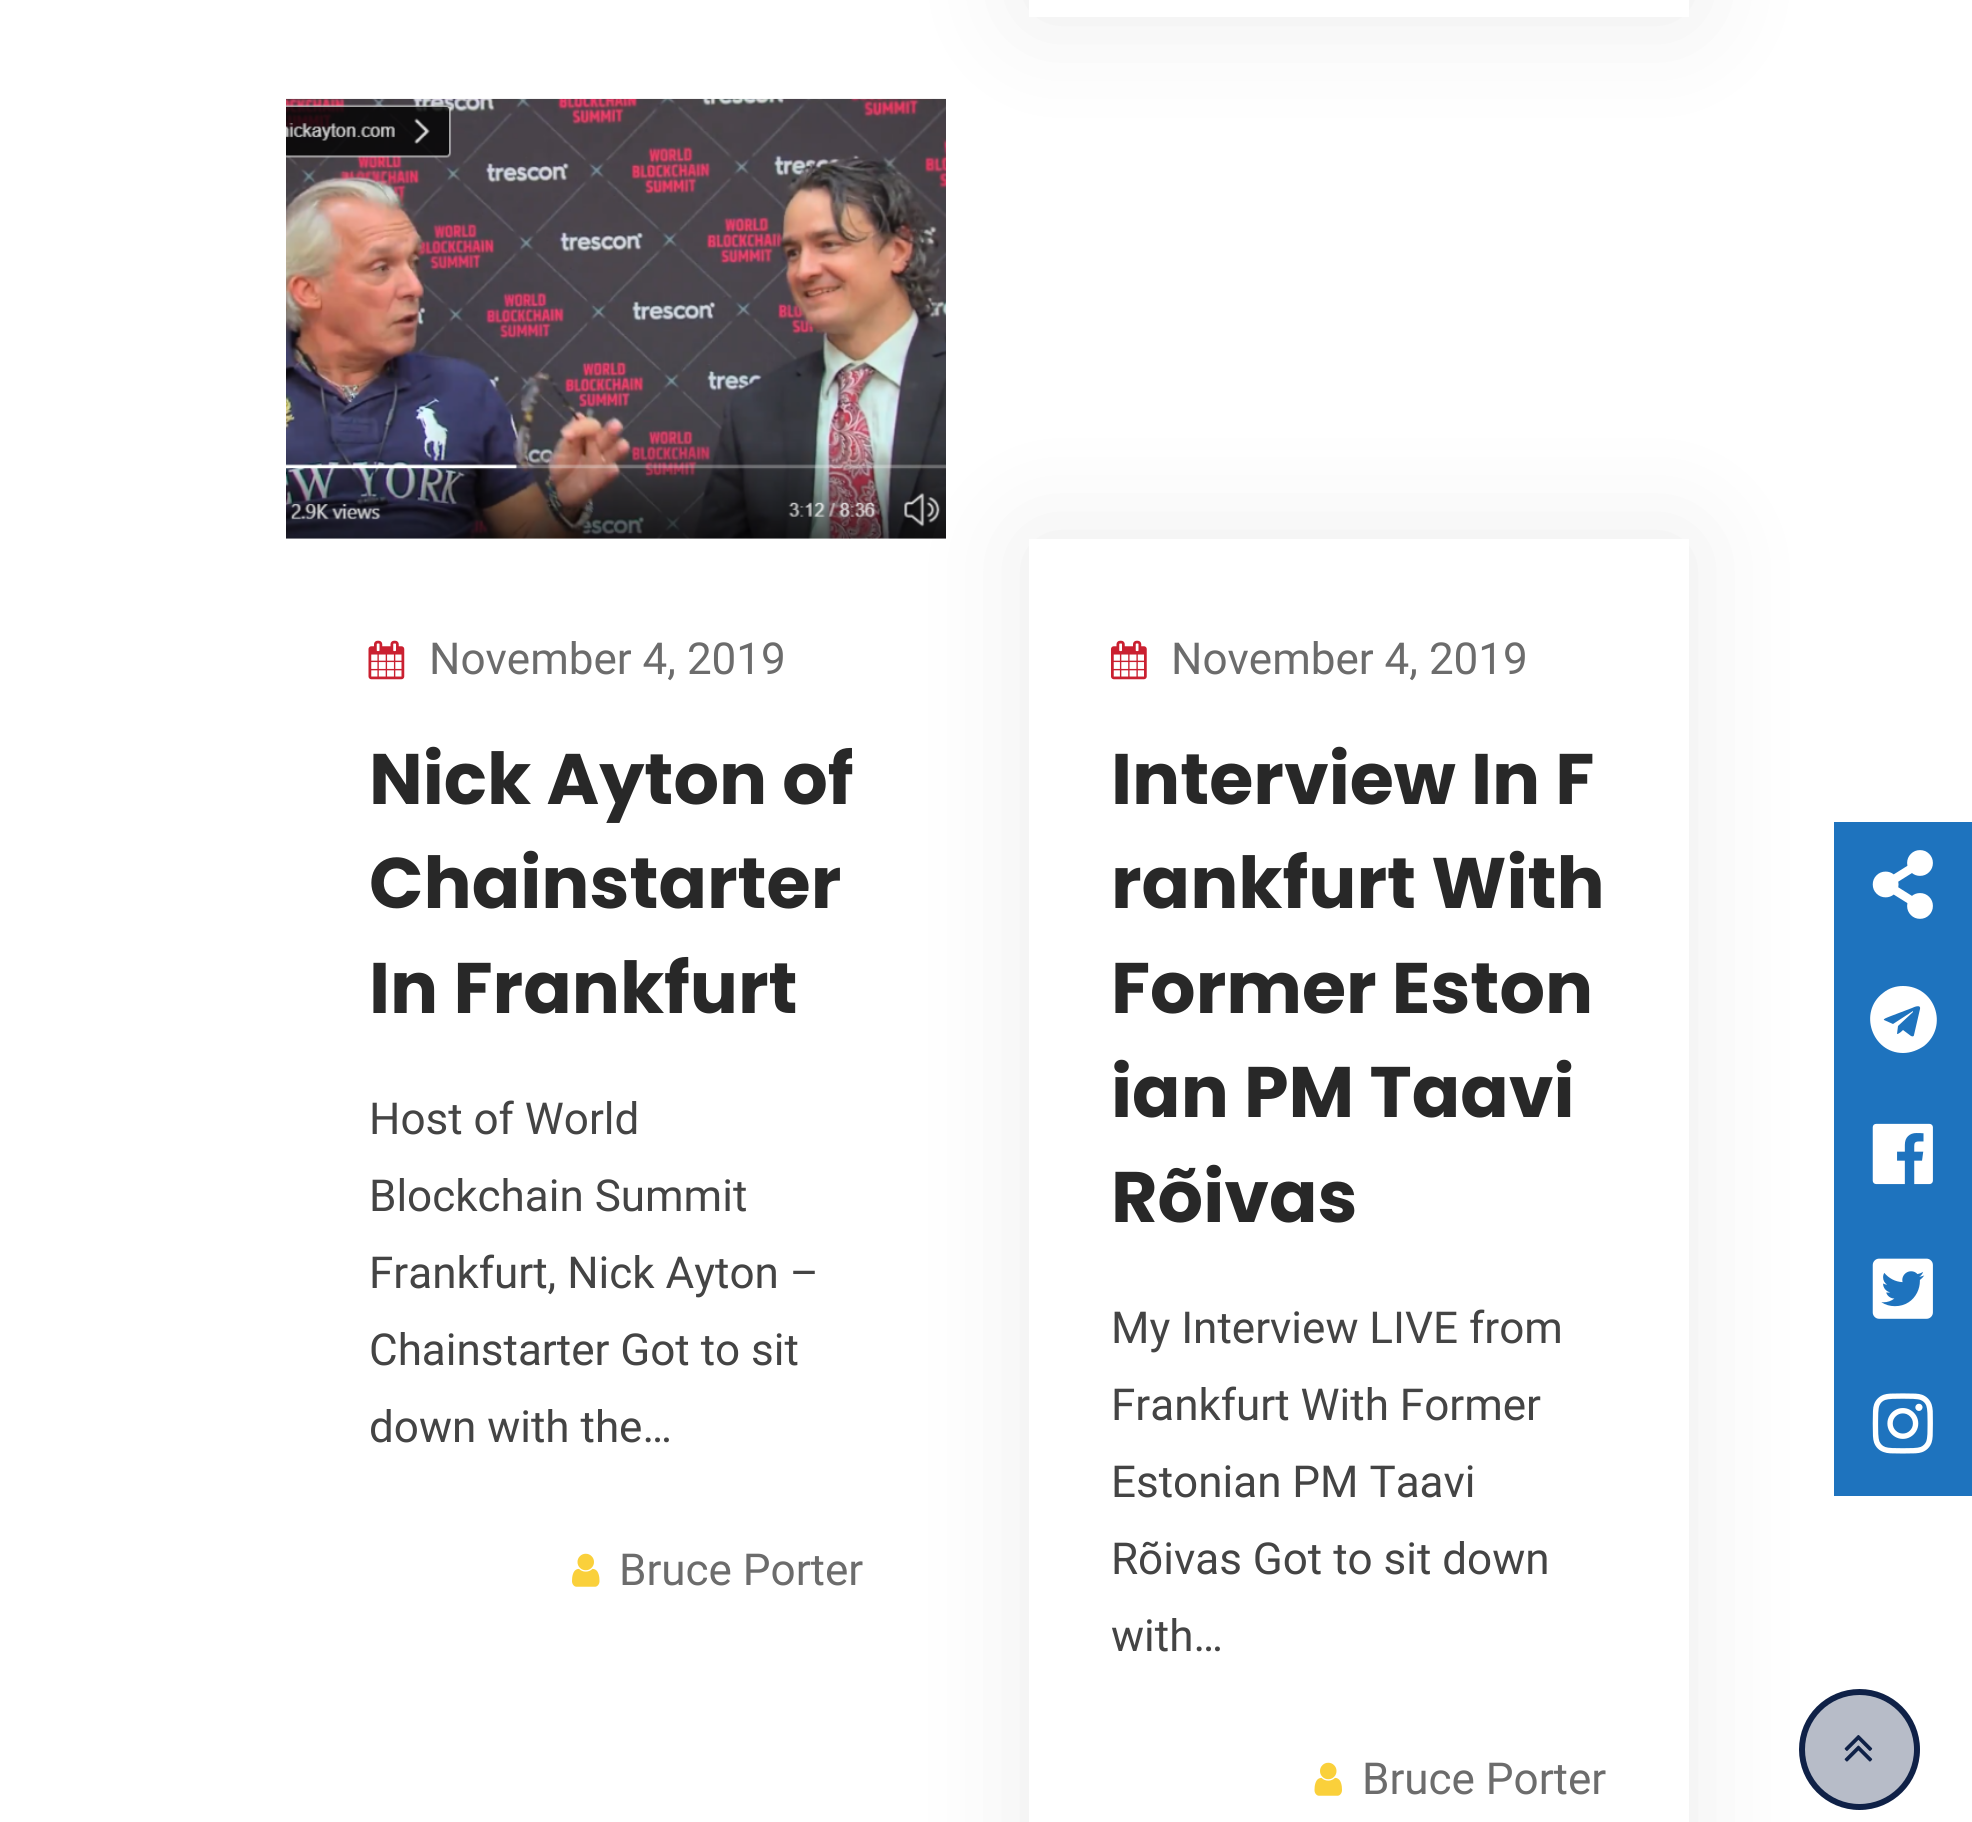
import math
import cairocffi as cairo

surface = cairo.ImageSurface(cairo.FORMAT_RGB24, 1972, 1822)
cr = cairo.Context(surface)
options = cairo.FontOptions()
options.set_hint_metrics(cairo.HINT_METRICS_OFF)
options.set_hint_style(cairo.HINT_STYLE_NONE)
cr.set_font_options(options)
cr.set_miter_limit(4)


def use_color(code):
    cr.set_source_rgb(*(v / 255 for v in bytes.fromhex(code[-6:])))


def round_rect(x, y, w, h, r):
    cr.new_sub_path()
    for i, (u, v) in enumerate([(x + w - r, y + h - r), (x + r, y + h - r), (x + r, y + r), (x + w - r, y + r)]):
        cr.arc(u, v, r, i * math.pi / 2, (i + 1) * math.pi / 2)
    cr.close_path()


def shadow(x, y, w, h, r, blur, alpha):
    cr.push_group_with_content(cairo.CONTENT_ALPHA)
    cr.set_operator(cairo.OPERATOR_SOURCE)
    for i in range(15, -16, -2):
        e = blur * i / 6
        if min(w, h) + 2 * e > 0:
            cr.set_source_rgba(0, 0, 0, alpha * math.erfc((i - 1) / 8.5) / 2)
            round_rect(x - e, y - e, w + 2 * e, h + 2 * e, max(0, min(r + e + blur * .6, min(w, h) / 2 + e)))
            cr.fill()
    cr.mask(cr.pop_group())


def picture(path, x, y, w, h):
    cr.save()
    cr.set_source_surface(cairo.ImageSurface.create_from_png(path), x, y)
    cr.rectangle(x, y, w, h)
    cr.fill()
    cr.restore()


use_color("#ffffff")
cr.paint()
use_color("#d8d8d8")
shadow(1029, -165, 660, 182, 0, 55, 0.5)
use_color("#ffffff")
cr.rectangle(1029, 0, 660, 17)
cr.fill()
picture("img1.png", 286, 98, 660, 441)
picture("img2.png", 368, 640, 37, 40)
cr.select_font_face("Roboto")
cr.set_font_size(44)
use_color("#6c6c6c")
cr.move_to(429, 674)
cr.show_text("November 4, 2019")
cr.select_font_face("Poppins", cairo.FONT_SLANT_NORMAL, cairo.FONT_WEIGHT_BOLD)
cr.set_font_size(71.5)
use_color("#282828")
cr.move_to(369, 804)
cr.show_text("Nick Ayton of")
cr.move_to(369, 908)
cr.show_text("Chainstarter")
cr.move_to(369, 1013)
cr.show_text("In Frankfurt")
cr.select_font_face("Roboto")
cr.set_font_size(44)
use_color("#444444")
cr.move_to(369, 1134)
cr.show_text("Host of World")
cr.move_to(369, 1211)
cr.show_text("Blockchain Summit")
cr.move_to(369, 1288)
cr.show_text("Frankfurt, Nick Ayton –")
cr.move_to(369, 1365)
cr.show_text("Chainstarter Got to sit")
cr.move_to(369, 1442)
cr.show_text("down with the…")
picture("img3.png", 572, 1553, 28, 34)
use_color("#6c6c6c")
cr.move_to(619, 1585)
cr.show_text("Bruce Porter")
use_color("#d8d8d8")
shadow(1029, 539, 660, 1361, 0, 55, 0.5)
use_color("#ffffff")
cr.rectangle(1029, 539, 660, 1283)
cr.fill()
picture("img4.png", 1111, 640, 36, 40)
use_color("#6c6c6c")
cr.move_to(1171, 674)
cr.show_text("November 4, 2019")
cr.select_font_face("Poppins", cairo.FONT_SLANT_NORMAL, cairo.FONT_WEIGHT_BOLD)
cr.set_font_size(71.5)
use_color("#282828")
cr.move_to(1111, 804)
cr.show_text("Interview In F")
cr.move_to(1111, 908)
cr.show_text("rankfurt With")
cr.move_to(1111, 1013)
cr.show_text("Former Eston")
cr.move_to(1111, 1117)
cr.show_text("ian PM Taavi")
cr.move_to(1111, 1222)
cr.show_text("Rõivas")
cr.select_font_face("Roboto")
cr.set_font_size(44)
use_color("#444444")
cr.move_to(1111, 1343)
cr.show_text("My Interview LIVE from")
cr.move_to(1111, 1420)
cr.show_text("Frankfurt With Former")
cr.move_to(1111, 1497)
cr.show_text("Estonian PM Taavi")
cr.move_to(1111, 1574)
cr.show_text("Rõivas Got to sit down")
cr.move_to(1111, 1651)
cr.show_text("with…")
picture("img5.png", 1314, 1762, 28, 34)
use_color("#6c6c6c")
cr.move_to(1362, 1794)
cr.show_text("Bruce Porter")
use_color("#1e73be")
cr.rectangle(1834, 822, 138, 674)
cr.fill()
use_color("#ffffff")
cr.new_path()
cr.move_to(1903, 986)
cr.curve_to(1896, 986, 1889, 988, 1883, 993)
cr.curve_to(1858, 1012, 1872, 1053, 1903, 1053)
cr.curve_to(1911, 1053, 1918, 1050, 1924, 1046)
cr.curve_to(1949, 1026, 1935, 986, 1903, 986)
cr.close_path()
cr.move_to(1920, 1009)
cr.line_to(1914, 1035)
cr.curve_to(1914, 1036, 1913, 1037, 1911, 1036)
cr.line_to(1903, 1030)
cr.curve_to(1902, 1031, 1899, 1034, 1897, 1034)
cr.line_to(1898, 1026)
cr.line_to(1913, 1012)
cr.line_to(1913, 1011)
cr.line_to(1893, 1024)
cr.line_to(1884, 1020)
cr.curve_to(1883, 1019, 1886, 1018, 1891, 1016)
cr.line_to(1912, 1008)
cr.curve_to(1914, 1007, 1921, 1004, 1920, 1009)
cr.close_path()
cr.fill()
picture("img6.png", 1872, 850, 61, 69)
picture("img7.png", 1872, 1123, 61, 62)
picture("img8.png", 1872, 1258, 61, 61)
picture("img9.png", 1872, 1393, 61, 61)
use_color("#b7bcc8")
cr.arc(1859.5, 1749.5, 57.5, 0, 2 * math.pi)
cr.fill_preserve()
use_color("#0f2147")
cr.set_line_width(6)
cr.stroke()
picture("img10.png", 1844, 1735, 29, 27)
surface.write_to_png("result.png")
